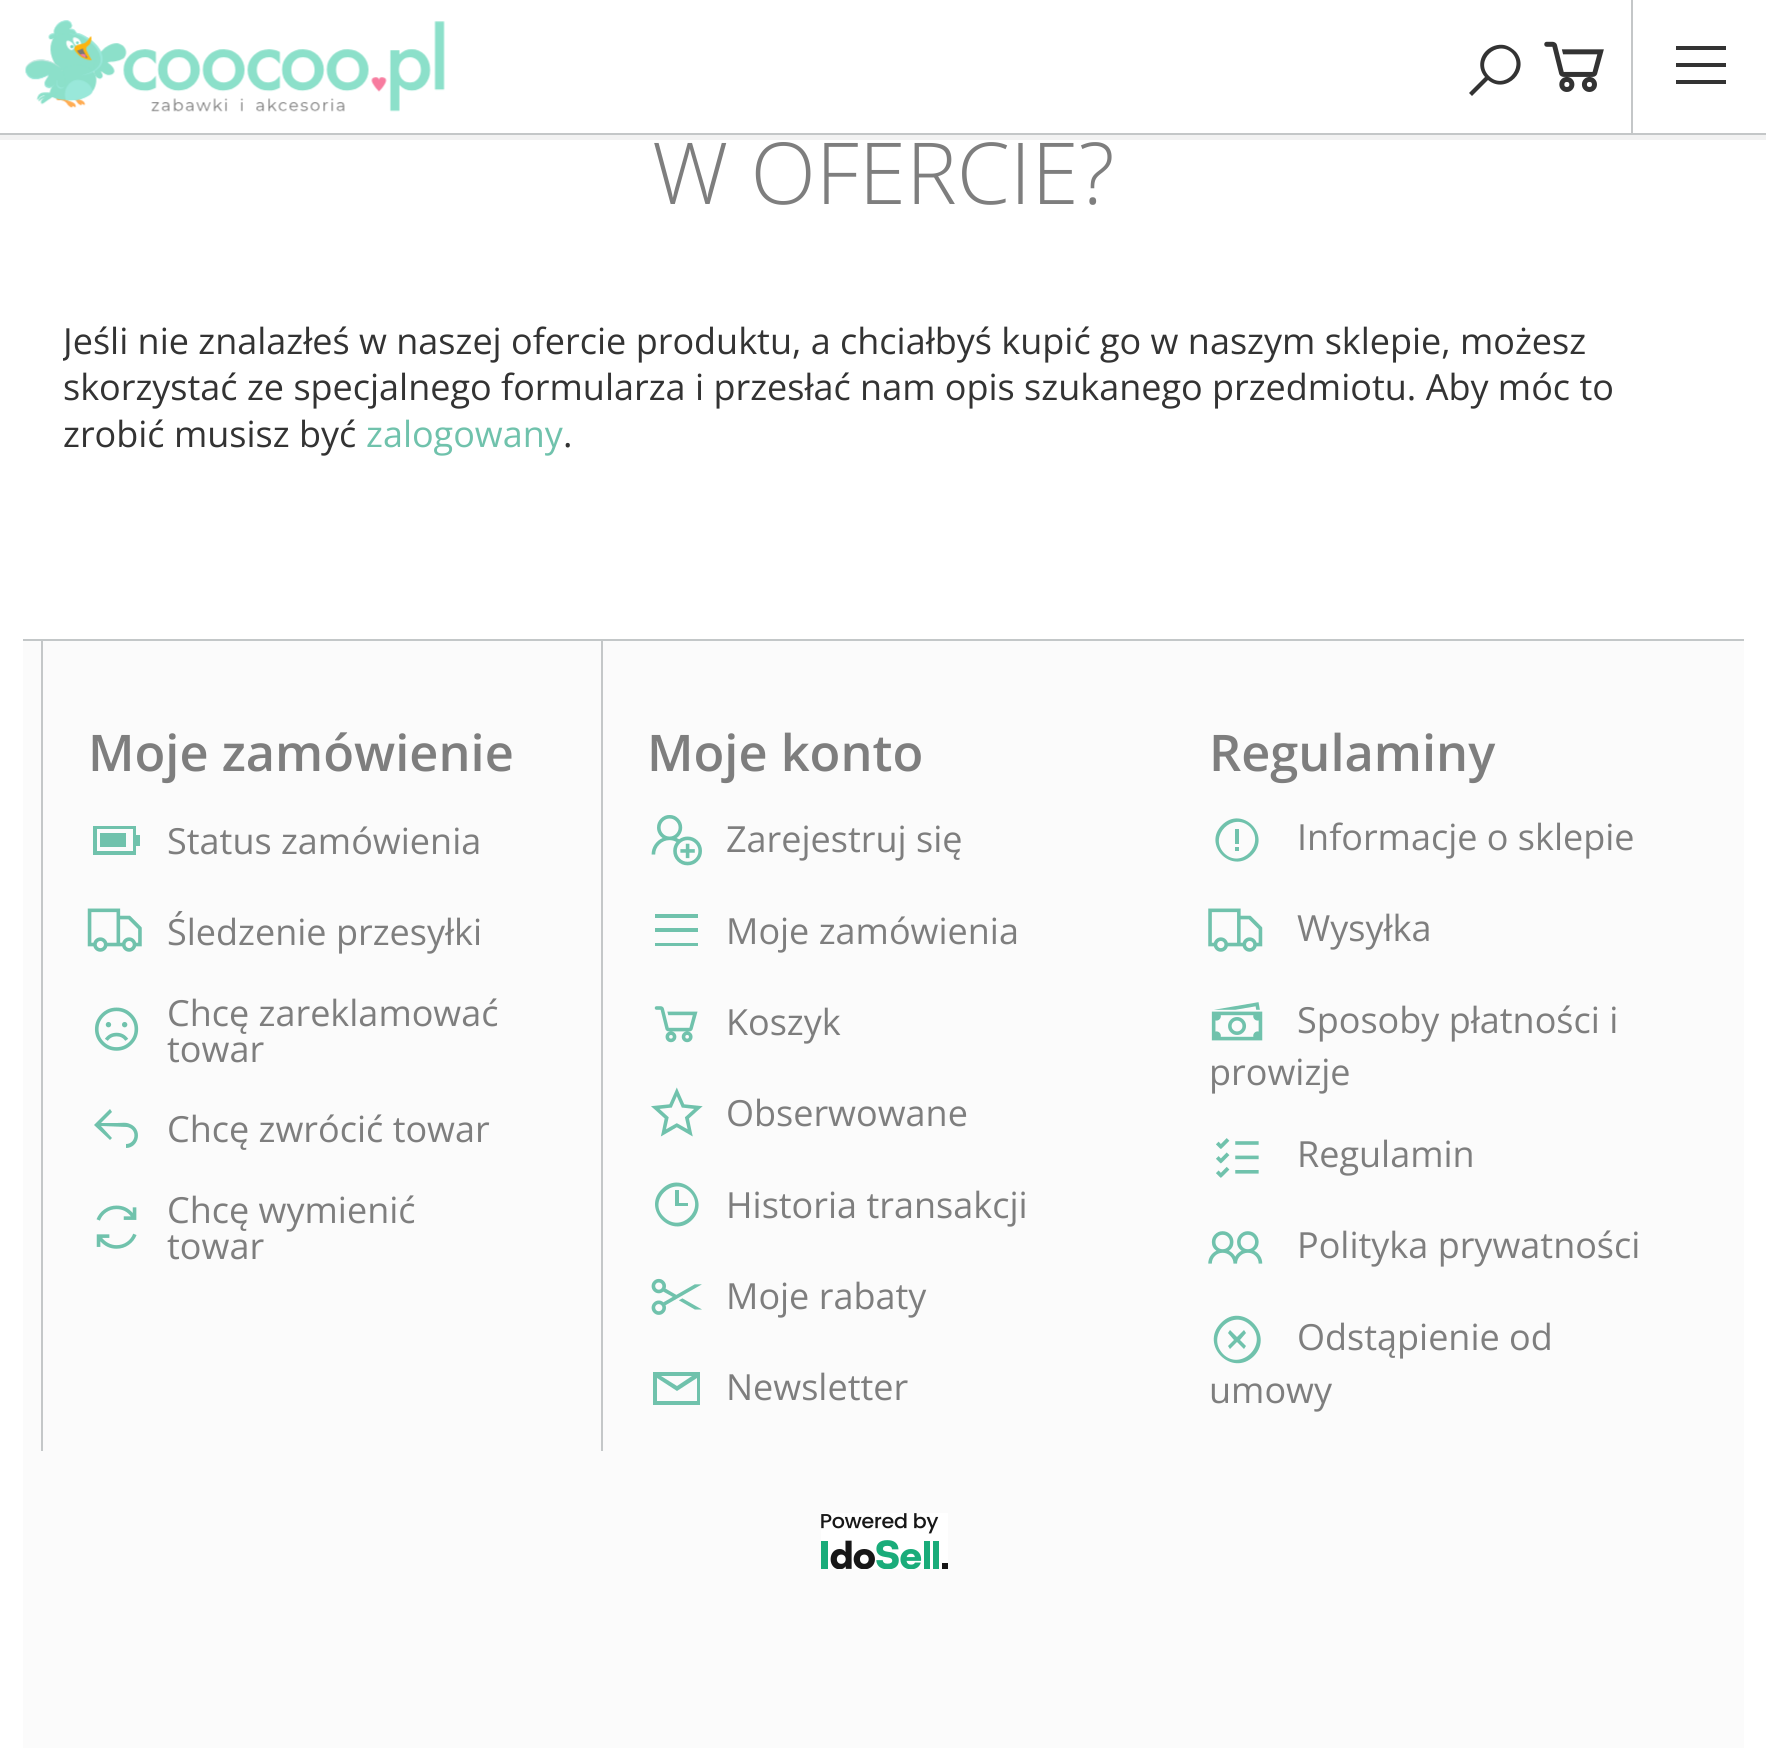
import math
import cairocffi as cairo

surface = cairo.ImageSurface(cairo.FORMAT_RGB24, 1766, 1748)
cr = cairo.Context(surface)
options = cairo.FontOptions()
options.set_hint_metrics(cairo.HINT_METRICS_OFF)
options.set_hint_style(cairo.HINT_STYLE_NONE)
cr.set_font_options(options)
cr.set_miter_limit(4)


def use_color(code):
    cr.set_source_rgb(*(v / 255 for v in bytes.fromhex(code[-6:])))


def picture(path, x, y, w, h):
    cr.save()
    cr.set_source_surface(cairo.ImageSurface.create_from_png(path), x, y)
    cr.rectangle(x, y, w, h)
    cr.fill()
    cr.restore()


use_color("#ffffff")
cr.paint()
use_color("#f2f2f2")
cr.rectangle(0, 135, 1766, 5)
cr.fill()
use_color("#c4c7c8")
cr.rectangle(0, 133, 1766, 2)
cr.fill()
picture("img1.png", 25, 20, 420, 92)
use_color("#333333")
cr.new_path()
cr.move_to(1486, 51)
cr.curve_to(1491, 46, 1498, 44, 1504, 45)
cr.curve_to(1509, 46, 1513, 49, 1516, 52)
cr.curve_to(1531, 70, 1506, 95, 1488, 80)
cr.line_to(1472, 96)
cr.line_to(1469, 93)
cr.line_to(1485, 77)
cr.curve_to(1478, 69, 1479, 58, 1486, 51)
cr.close_path()
cr.move_to(1512, 53)
cr.curve_to(1497, 39, 1474, 61, 1489, 76)
cr.curve_to(1504, 91, 1526, 68, 1512, 53)
cr.close_path()
cr.fill()
picture("img2.png", 1544, 41, 60, 51)
use_color("#c4c7c8")
cr.rectangle(1631, 0, 2, 133)
cr.fill()
use_color("#333333")
cr.new_path()
cr.move_to(1676, 46)
cr.line_to(1726, 46)
cr.line_to(1726, 50)
cr.line_to(1676, 50)
cr.close_path()
cr.move_to(1676, 63)
cr.line_to(1726, 63)
cr.line_to(1726, 67)
cr.line_to(1676, 67)
cr.close_path()
cr.move_to(1676, 80)
cr.line_to(1726, 80)
cr.line_to(1726, 84)
cr.line_to(1676, 84)
cr.close_path()
cr.fill()
cr.select_font_face("Open Sans Light")
cr.set_font_size(85.5)
use_color("#7e7e7e")
cr.move_to(652, 204)
cr.show_text("W OFERCIE?")
cr.save()
cr.rectangle(63, 317, 1640, 142)
cr.clip()
cr.select_font_face("Open Sans")
cr.set_font_size(36)
use_color("#333333")
cr.move_to(63, 354)
cr.show_text("Jeśli nie znalazłeś w naszej ofercie produktu, a chciałbyś kupić go w naszym sklepie, możesz")
cr.restore()
cr.select_font_face("Open Sans")
cr.set_font_size(36)
use_color("#333333")
cr.move_to(63, 400)
cr.show_text("skorzystać ze specjalnego formularza i przesłać nam opis szukanego przedmiotu. Aby móc to")
cr.move_to(63, 447)
cr.show_text("zrobić musisz być")
use_color("#70c2ac")
cr.move_to(366, 447)
cr.show_text("zalogowany")
use_color("#333333")
cr.move_to(563, 447)
cr.show_text(".")
use_color("#fbfbfb")
cr.rectangle(23, 641, 1721, 1107)
cr.fill()
use_color("#c3c7c8")
cr.rectangle(23, 639, 1721, 2)
cr.fill()
use_color("#c4c7c8")
cr.rectangle(601, 641, 2, 810)
cr.fill()
cr.rectangle(41, 641, 2, 810)
cr.fill()
cr.select_font_face("Open Sans SemiBold")
cr.set_font_size(50.5)
use_color("#7e7e7e")
cr.move_to(88, 771)
cr.show_text("Moje zamówienie")
use_color("#70c2ac")
cr.new_path()
cr.move_to(93, 826)
cr.line_to(136, 826)
cr.line_to(136, 835)
cr.line_to(140, 835)
cr.line_to(140, 846)
cr.line_to(136, 846)
cr.line_to(136, 855)
cr.line_to(93, 855)
cr.close_path()
cr.move_to(97, 829)
cr.line_to(97, 851)
cr.line_to(133, 851)
cr.line_to(133, 829)
cr.close_path()
cr.move_to(100, 833)
cr.line_to(126, 833)
cr.line_to(126, 847)
cr.line_to(100, 847)
cr.close_path()
cr.fill()
cr.select_font_face("Open Sans")
cr.set_font_size(36)
use_color("#7e7e7e")
cr.move_to(167, 854)
cr.show_text("Status zamówienia")
picture("img3.png", 87, 908, 55, 44)
cr.move_to(167, 945)
cr.show_text("Śledzenie przesyłki")
picture("img4.png", 94, 1007, 45, 44)
cr.move_to(167, 1026)
cr.show_text("Chcę zareklamować")
cr.move_to(167, 1062)
cr.show_text("towar")
use_color("#70c2ac")
cr.new_path()
cr.move_to(110, 1109)
cr.line_to(112, 1112)
cr.line_to(101, 1123)
cr.line_to(117, 1123)
cr.curve_to(122, 1123, 126, 1122, 130, 1124)
cr.curve_to(143, 1129, 139, 1148, 126, 1148)
cr.line_to(126, 1144)
cr.curve_to(136, 1144, 138, 1129, 127, 1127)
cr.line_to(101, 1126)
cr.line_to(112, 1138)
cr.line_to(110, 1140)
cr.line_to(94, 1125)
cr.close_path()
cr.fill()
use_color("#7e7e7e")
cr.move_to(167, 1142)
cr.show_text("Chcę zwrócić towar")
picture("img5.png", 96, 1205, 41, 44)
cr.move_to(167, 1223)
cr.show_text("Chcę wymienić")
cr.move_to(167, 1259)
cr.show_text("towar")
cr.select_font_face("Open Sans SemiBold")
cr.set_font_size(50.5)
cr.move_to(647, 771)
cr.show_text("Moje konto")
picture("img6.png", 651, 815, 51, 51)
cr.select_font_face("Open Sans")
cr.set_font_size(36)
cr.move_to(726, 852)
cr.show_text("Zarejestruj się")
use_color("#70c2ac")
cr.new_path()
cr.move_to(655, 914)
cr.line_to(698, 914)
cr.line_to(698, 918)
cr.line_to(655, 918)
cr.close_path()
cr.move_to(655, 928)
cr.line_to(698, 928)
cr.line_to(698, 932)
cr.line_to(655, 932)
cr.close_path()
cr.move_to(655, 943)
cr.line_to(698, 943)
cr.line_to(698, 946)
cr.line_to(655, 946)
cr.close_path()
cr.fill()
use_color("#7e7e7e")
cr.move_to(726, 944)
cr.show_text("Moje zamówienia")
picture("img7.png", 654, 1006, 44, 37)
cr.move_to(726, 1035)
cr.show_text("Koszyk")
picture("img8.png", 651, 1087, 52, 50)
cr.move_to(726, 1126)
cr.show_text("Obserwowane")
use_color("#70c2ac")
cr.new_path()
cr.move_to(662, 1189)
cr.curve_to(682, 1169, 712, 1200, 692, 1220)
cr.curve_to(672, 1240, 641, 1209, 662, 1189)
cr.close_path()
cr.move_to(690, 1192)
cr.curve_to(673, 1175, 647, 1201, 664, 1217)
cr.curve_to(681, 1234, 706, 1209, 690, 1192)
cr.close_path()
cr.move_to(675, 1190)
cr.line_to(679, 1190)
cr.line_to(679, 1203)
cr.line_to(688, 1203)
cr.line_to(688, 1206)
cr.line_to(675, 1206)
cr.close_path()
cr.fill()
use_color("#7e7e7e")
cr.move_to(726, 1218)
cr.show_text("Historia transakcji")
picture("img9.png", 651, 1278, 51, 37)
cr.move_to(726, 1309)
cr.show_text("Moje rabaty")
use_color("#70c2ac")
cr.new_path()
cr.move_to(653, 1372)
cr.line_to(700, 1372)
cr.line_to(700, 1405)
cr.line_to(653, 1405)
cr.close_path()
cr.move_to(661, 1376)
cr.line_to(677, 1386)
cr.line_to(692, 1376)
cr.close_path()
cr.move_to(657, 1378)
cr.line_to(657, 1401)
cr.line_to(697, 1401)
cr.line_to(697, 1378)
cr.line_to(677, 1391)
cr.close_path()
cr.fill()
use_color("#7e7e7e")
cr.move_to(726, 1400)
cr.show_text("Newsletter")
cr.select_font_face("Open Sans SemiBold")
cr.set_font_size(50.5)
cr.move_to(1209, 771)
cr.show_text("Regulaminy")
use_color("#70c2ac")
cr.new_path()
cr.move_to(1222, 825)
cr.curve_to(1242, 805, 1272, 835, 1252, 855)
cr.curve_to(1232, 875, 1202, 845, 1222, 825)
cr.close_path()
cr.move_to(1250, 827)
cr.curve_to(1233, 811, 1208, 836, 1224, 853)
cr.curve_to(1241, 870, 1266, 844, 1250, 827)
cr.close_path()
cr.move_to(1235, 829)
cr.line_to(1239, 829)
cr.line_to(1239, 844)
cr.line_to(1235, 844)
cr.close_path()
cr.move_to(1235, 847)
cr.line_to(1239, 847)
cr.line_to(1239, 851)
cr.line_to(1235, 851)
cr.close_path()
cr.fill()
cr.select_font_face("Open Sans")
cr.set_font_size(36)
use_color("#7e7e7e")
cr.move_to(1297, 850)
cr.show_text("Informacje o sklepie")
picture("img10.png", 1208, 908, 55, 44)
cr.move_to(1297, 941)
cr.show_text("Wysyłka")
picture("img11.png", 1211, 1002, 52, 39)
cr.move_to(1297, 1033)
cr.show_text("Sposoby płatności i")
cr.move_to(1209, 1085)
cr.show_text("prowizje")
picture("img12.png", 1216, 1138, 43, 40)
cr.move_to(1297, 1167)
cr.show_text("Regulamin")
picture("img13.png", 1208, 1231, 55, 33)
cr.move_to(1297, 1258)
cr.show_text("Polityka prywatności")
use_color("#70c2ac")
cr.new_path()
cr.move_to(1221, 1323)
cr.curve_to(1242, 1301, 1275, 1334, 1254, 1356)
cr.curve_to(1232, 1378, 1199, 1345, 1221, 1323)
cr.close_path()
cr.move_to(1251, 1326)
cr.curve_to(1233, 1307, 1205, 1335, 1223, 1354)
cr.curve_to(1241, 1372, 1269, 1344, 1251, 1326)
cr.close_path()
cr.move_to(1230, 1330)
cr.line_to(1237, 1337)
cr.line_to(1244, 1330)
cr.line_to(1246, 1333)
cr.line_to(1240, 1340)
cr.line_to(1246, 1346)
cr.line_to(1244, 1349)
cr.line_to(1237, 1342)
cr.line_to(1230, 1349)
cr.line_to(1228, 1346)
cr.line_to(1234, 1340)
cr.line_to(1228, 1333)
cr.close_path()
cr.fill()
use_color("#7e7e7e")
cr.move_to(1297, 1350)
cr.show_text("Odstąpienie od")
cr.move_to(1209, 1403)
cr.show_text("umowy")
picture("img14.png", 821, 1513, 127, 56)
surface.write_to_png("result.png")
